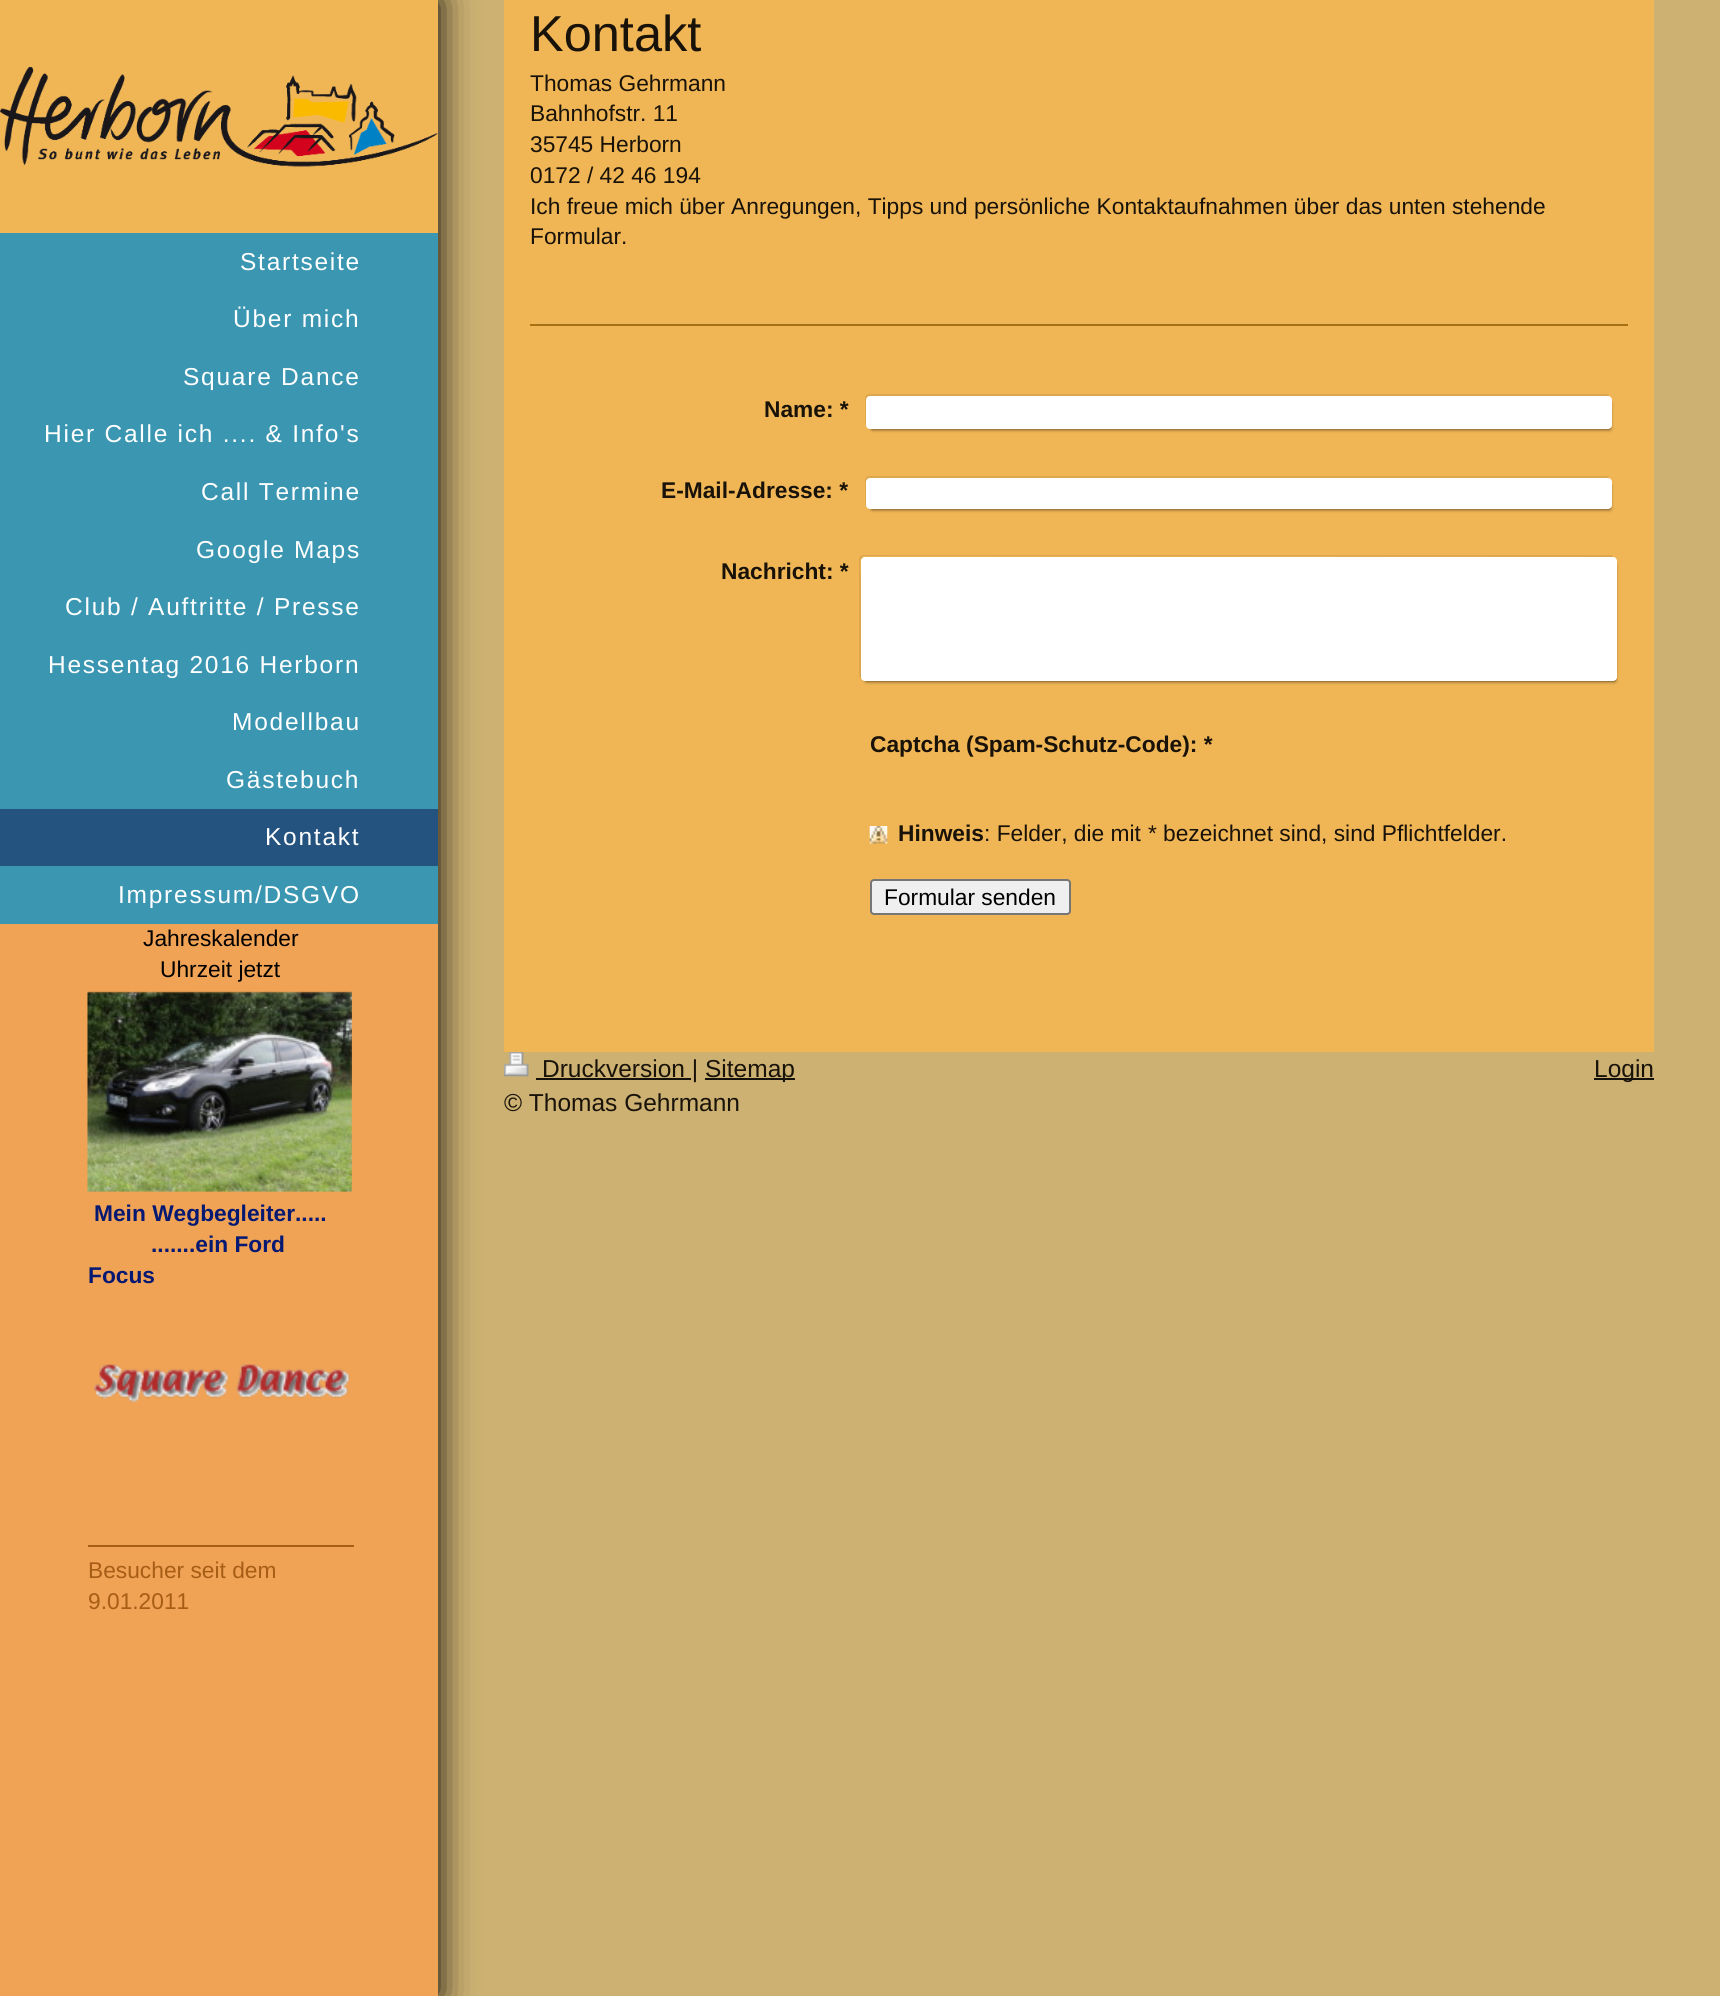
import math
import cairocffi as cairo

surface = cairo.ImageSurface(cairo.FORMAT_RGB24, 1720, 1996)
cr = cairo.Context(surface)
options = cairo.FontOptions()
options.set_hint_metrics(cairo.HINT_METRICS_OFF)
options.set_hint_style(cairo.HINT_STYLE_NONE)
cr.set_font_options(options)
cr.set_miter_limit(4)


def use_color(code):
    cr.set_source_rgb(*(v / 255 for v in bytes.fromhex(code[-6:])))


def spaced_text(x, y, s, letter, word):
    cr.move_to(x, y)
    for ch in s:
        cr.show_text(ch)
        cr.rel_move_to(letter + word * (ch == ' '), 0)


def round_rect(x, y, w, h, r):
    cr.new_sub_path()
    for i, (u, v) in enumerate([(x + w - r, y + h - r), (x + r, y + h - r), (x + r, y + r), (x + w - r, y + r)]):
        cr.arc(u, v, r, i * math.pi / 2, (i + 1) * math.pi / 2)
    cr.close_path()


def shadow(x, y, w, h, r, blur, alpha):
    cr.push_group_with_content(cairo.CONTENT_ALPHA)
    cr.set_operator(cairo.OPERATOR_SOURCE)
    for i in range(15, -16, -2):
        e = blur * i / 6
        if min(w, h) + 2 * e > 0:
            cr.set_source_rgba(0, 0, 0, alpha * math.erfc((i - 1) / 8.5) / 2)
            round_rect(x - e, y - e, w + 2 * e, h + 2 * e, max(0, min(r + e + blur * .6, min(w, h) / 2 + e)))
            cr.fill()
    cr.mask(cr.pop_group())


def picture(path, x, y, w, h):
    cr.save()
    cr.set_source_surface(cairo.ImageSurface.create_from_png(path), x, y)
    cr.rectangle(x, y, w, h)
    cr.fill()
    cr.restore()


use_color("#ccb172")
cr.paint()
use_color("#000000")
shadow(0, 0, 438, 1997, 0, 17.5, 1)
use_color("#f0a255")
cr.rectangle(0, 924, 438, 1072)
cr.fill()
use_color("#f0b655")
cr.rectangle(504, 0, 1150, 1052)
cr.fill()
cr.select_font_face("Liberation Sans")
cr.set_font_size(50.5)
use_color("#181209")
cr.move_to(530, 51)
cr.show_text("Kontakt")
cr.set_font_size(22.75)
cr.move_to(530, 91)
cr.show_text("Thomas Gehrmann")
cr.move_to(530, 121)
cr.show_text("Bahnhofstr. 11")
cr.move_to(530, 152)
cr.show_text("35745 Herborn")
cr.move_to(530, 183)
cr.show_text("0172 / 42 46 194")
cr.move_to(530, 214)
cr.show_text("Ich freue mich über Anregungen, Tipps und persönliche Kontaktaufnahmen über das unten stehende")
cr.move_to(530, 244)
cr.show_text("Formular.")
use_color("#a67015")
cr.rectangle(530, 324, 1098, 2)
cr.fill()
use_color("#dda74e")
cr.new_path()
cr.move_to(869, 394)
cr.curve_to(867, 394, 865, 396, 865, 398)
cr.line_to(865, 423)
cr.curve_to(865, 424, 866, 425, 866, 426)
cr.line_to(866, 403)
cr.curve_to(866, 401, 866, 396, 870, 396)
cr.line_to(1609, 396)
cr.curve_to(1609, 395, 1607, 394, 1606, 394)
cr.close_path()
cr.fill()
use_color("#000000")
shadow(872, 403, 738, 26, 0, 2, 0.8)
cr.select_font_face("Liberation Sans", cairo.FONT_SLANT_NORMAL, cairo.FONT_WEIGHT_BOLD)
use_color("#181209")
cr.move_to(764, 417)
cr.show_text("Name: *")
use_color("#ffffff")
round_rect(866, 396, 746, 33, 4)
cr.fill()
use_color("#dda74e")
cr.new_path()
cr.move_to(869, 476)
cr.curve_to(867, 476, 865, 478, 865, 480)
cr.line_to(865, 504)
cr.curve_to(865, 505, 866, 506, 867, 507)
cr.line_to(866, 485)
cr.curve_to(866, 483, 866, 478, 870, 478)
cr.line_to(1609, 478)
cr.curve_to(1609, 477, 1607, 476, 1606, 476)
cr.close_path()
cr.fill()
use_color("#000000")
shadow(872, 485, 738, 24, 0, 2, 0.8)
use_color("#181209")
cr.move_to(661, 498)
cr.show_text("E-Mail-Adresse: *")
use_color("#ffffff")
round_rect(866, 478, 746, 31, 4)
cr.fill()
use_color("#dda74e")
cr.new_path()
cr.move_to(863, 555)
cr.curve_to(861, 555, 859, 557, 859, 559)
cr.line_to(859, 675)
cr.curve_to(859, 677, 860, 678, 861, 679)
cr.line_to(861, 580)
cr.curve_to(861, 572, 858, 557, 864, 556)
cr.line_to(1614, 557)
cr.curve_to(1613, 556, 1612, 555, 1611, 555)
cr.close_path()
cr.fill()
use_color("#000000")
shadow(866, 564, 749, 117, 0, 2, 0.8)
use_color("#181209")
cr.move_to(721, 579)
cr.show_text("Nachricht: *")
use_color("#ffffff")
round_rect(861, 557, 756, 124, 4)
cr.fill()
use_color("#181209")
cr.move_to(870, 752)
cr.show_text("Captcha (Spam-Schutz-Code): *")
picture("img1.png", 869, 826, 19, 18)
cr.move_to(898, 841)
cr.show_text("Hinweis")
cr.select_font_face("Liberation Sans")
cr.move_to(984, 841)
cr.show_text(": Felder, die mit")
cr.select_font_face("Liberation Sans", cairo.FONT_SLANT_ITALIC)
cr.move_to(1147, 841)
cr.show_text("*")
cr.select_font_face("Liberation Sans")
cr.move_to(1163, 841)
cr.show_text("bezeichnet sind, sind Pflichtfelder.")
use_color("#efefef")
round_rect(871, 880, 199, 34, 3)
cr.fill_preserve()
use_color("#767676")
cr.stroke()
use_color("#000000")
cr.move_to(884, 905)
cr.show_text("Formular senden")
picture("img2.png", 504, 1051, 25, 26)
use_color("#14120b")
cr.rectangle(536, 1078, 155, 2)
cr.fill()
cr.set_font_size(24.5)
use_color("#181209")
cr.move_to(542, 1077)
cr.show_text("Druckversion |")
use_color("#14120b")
cr.rectangle(705, 1078, 90, 2)
cr.fill()
use_color("#181209")
cr.move_to(705, 1077)
cr.show_text("Sitemap")
cr.move_to(504, 1111)
cr.show_text("© Thomas Gehrmann")
use_color("#14120b")
cr.rectangle(1594, 1078, 60, 2)
cr.fill()
use_color("#181209")
cr.move_to(1594, 1077)
cr.show_text("Login")
use_color("#f0b655")
cr.rectangle(0, 0, 438, 233)
cr.fill()
picture("img3.png", 0, 67, 438, 100)
use_color("#3b96b2")
cr.rectangle(0, 233, 438, 691)
cr.fill()
use_color("#ffffff")
spaced_text(240, 270, "Startseite", 1.75, 0)
spaced_text(233, 327, "Über mich", 1.75, 0)
spaced_text(183, 385, "Square Dance", 1.75, 0)
spaced_text(44, 442, "Hier Calle ich .... & Info's", 1.75, 0)
spaced_text(201, 500, "Call Termine", 1.75, 0)
spaced_text(196, 558, "Google Maps", 1.75, 0)
spaced_text(65, 615, "Club / Auftritte / Presse", 1.75, 0)
spaced_text(48, 673, "Hessentag 2016 Herborn", 1.75, 0)
spaced_text(232, 730, "Modellbau", 1.75, 0)
spaced_text(226, 788, "Gästebuch", 1.75, 0)
use_color("#23537e")
cr.rectangle(0, 809, 438, 57)
cr.fill()
use_color("#ffffff")
spaced_text(265, 845, "Kontakt", 1.75, 0)
spaced_text(118, 903, "Impressum/DSGVO", 1.75, 0)
cr.set_font_size(22.75)
use_color("#000000")
cr.move_to(143, 946)
cr.show_text("Jahreskalender")
cr.move_to(160, 977)
cr.show_text("Uhrzeit jetzt")
picture("img4.png", 87, 991, 265, 201)
cr.select_font_face("Liberation Sans", cairo.FONT_SLANT_NORMAL, cairo.FONT_WEIGHT_BOLD)
use_color("#051972")
cr.move_to(94, 1221)
cr.show_text("Mein Wegbegleiter.....")
cr.move_to(151, 1252)
cr.show_text(".......ein Ford")
cr.move_to(88, 1283)
cr.show_text("Focus")
picture("img5.png", 94, 1364, 256, 39)
use_color("#a65d15")
cr.rectangle(88, 1545, 266, 2)
cr.fill()
cr.select_font_face("Liberation Sans")
cr.move_to(88, 1578)
cr.show_text("Besucher seit dem")
cr.move_to(88, 1609)
cr.show_text("9.01.2011")
surface.write_to_png("result.png")
